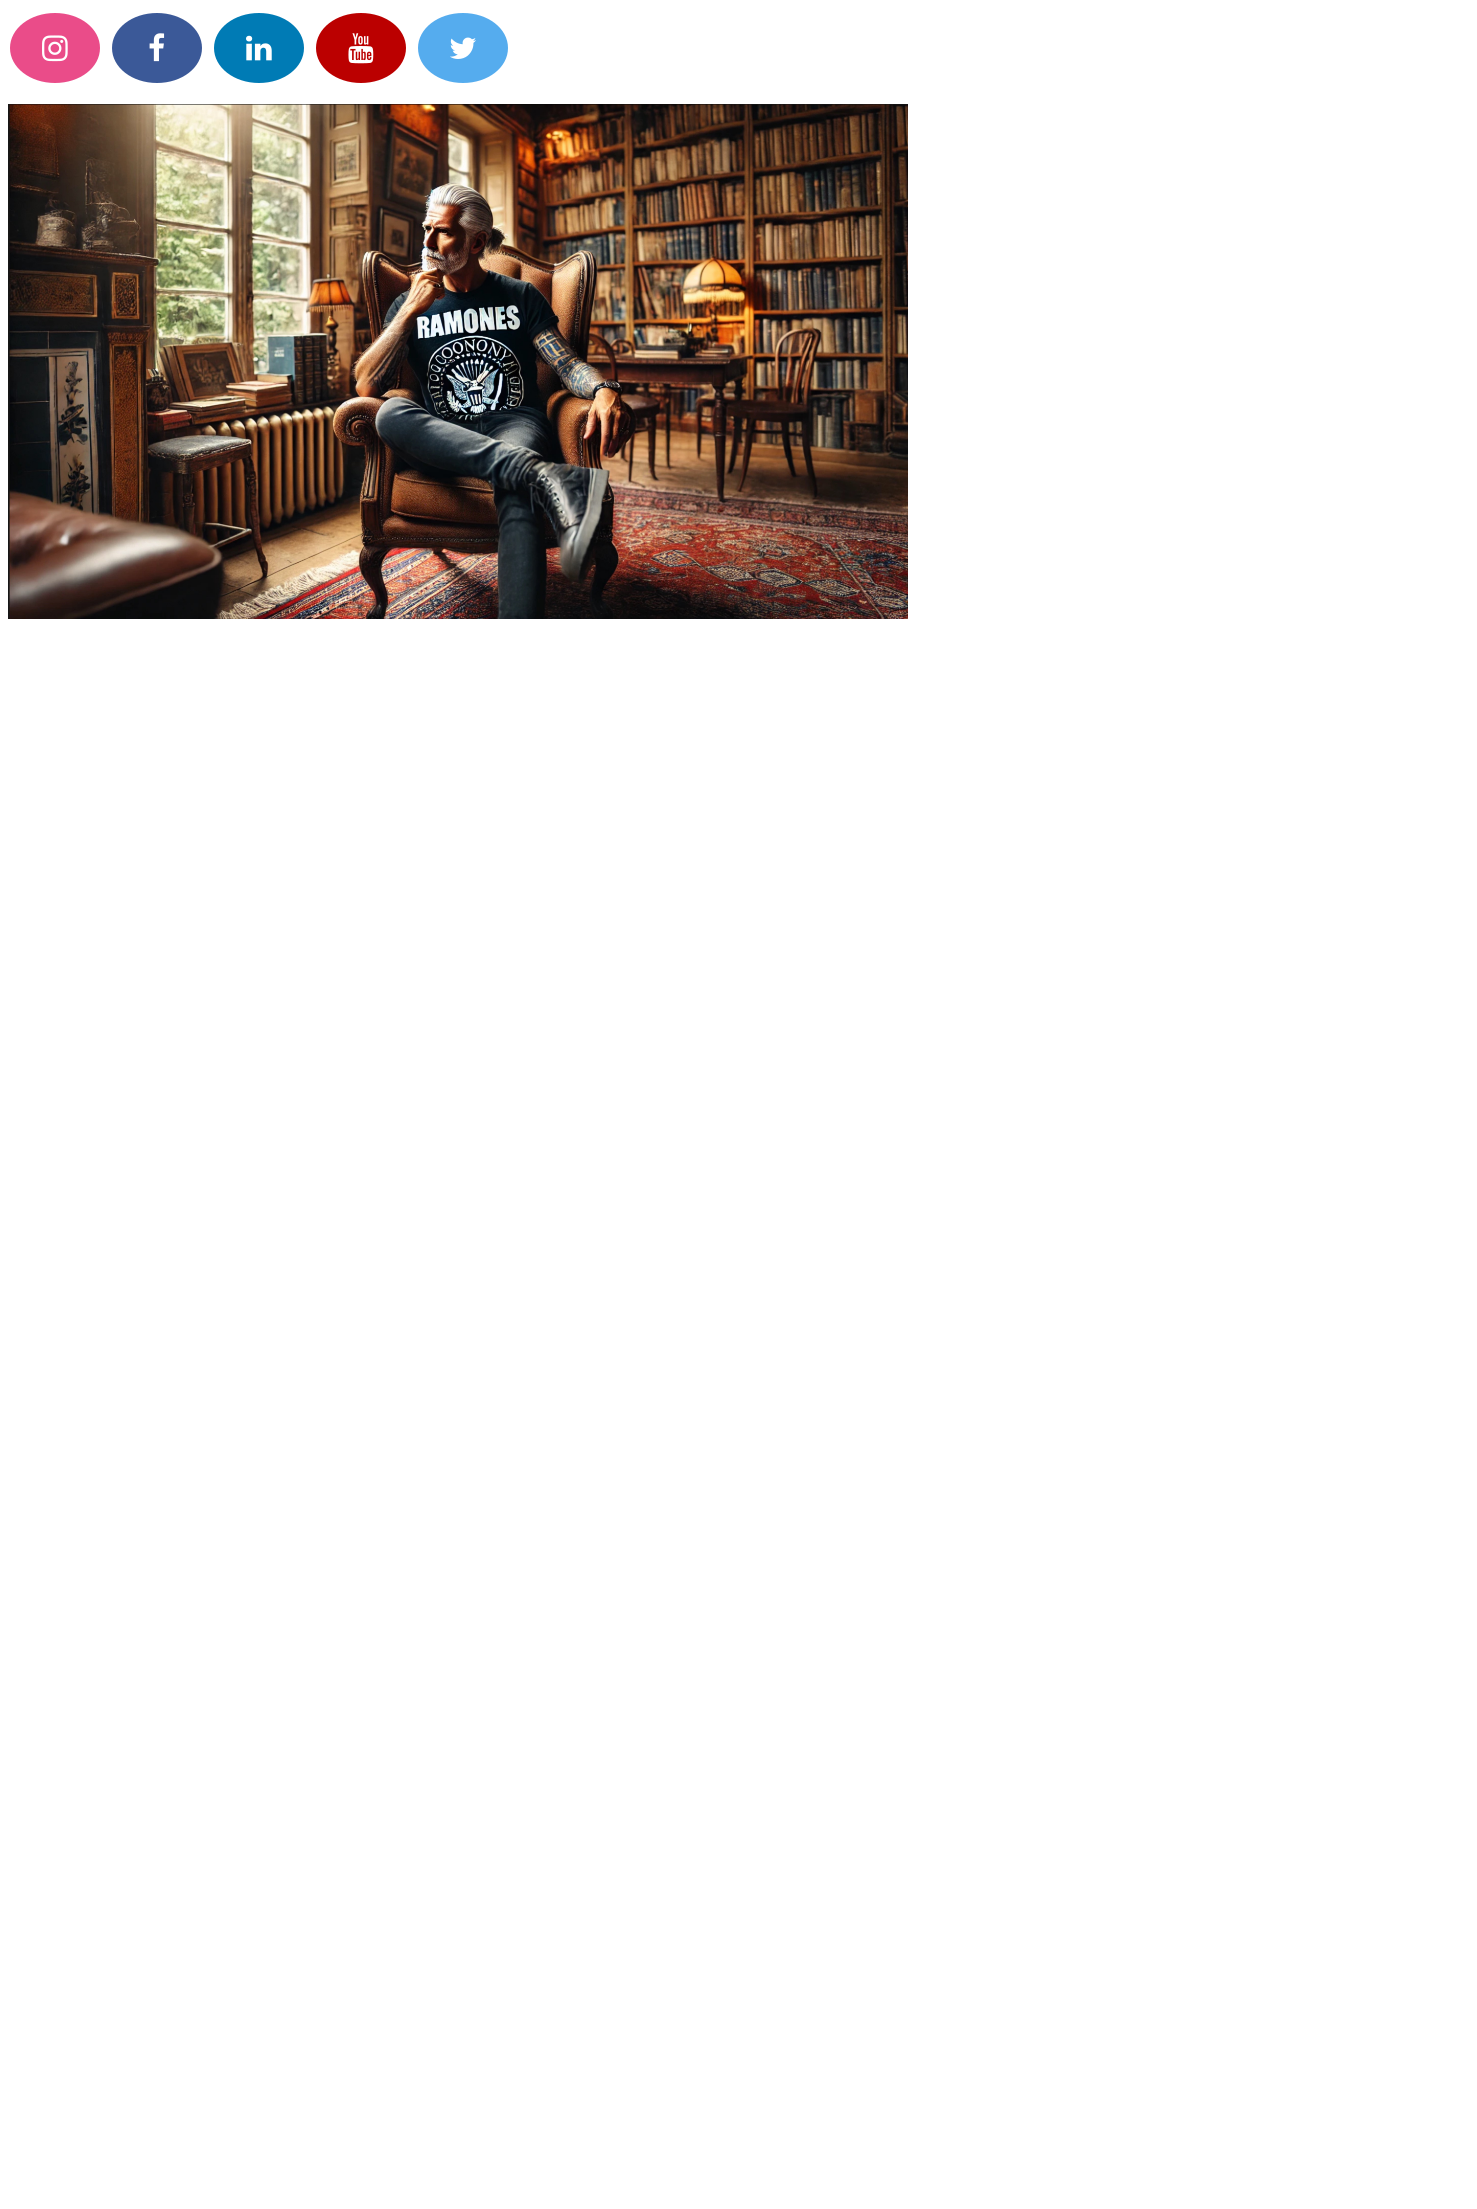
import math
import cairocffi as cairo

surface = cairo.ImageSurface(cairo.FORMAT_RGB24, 1477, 2209)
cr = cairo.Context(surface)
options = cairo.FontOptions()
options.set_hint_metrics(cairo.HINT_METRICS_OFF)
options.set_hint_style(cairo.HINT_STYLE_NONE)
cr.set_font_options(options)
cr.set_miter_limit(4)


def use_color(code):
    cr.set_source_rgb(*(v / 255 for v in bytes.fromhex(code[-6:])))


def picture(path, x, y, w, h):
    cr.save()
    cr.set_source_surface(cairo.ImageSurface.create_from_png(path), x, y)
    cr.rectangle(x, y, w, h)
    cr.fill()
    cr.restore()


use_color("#ffffff")
cr.paint()
use_color("#ea4c89")
cr.new_path()
cr.move_to(55, 13)
cr.curve_to(80, 13, 100, 28.5, 100, 48)
cr.curve_to(100, 67.5, 80, 83, 55, 83)
cr.curve_to(30, 83, 10, 67.5, 10, 48)
cr.curve_to(10, 28.5, 30, 13, 55, 13)
cr.close_path()
cr.fill()
picture("img1.png", 42, 35, 26, 27)
use_color("#3b5998")
cr.new_path()
cr.move_to(157, 13)
cr.curve_to(182, 13, 202, 28.5, 202, 48)
cr.curve_to(202, 67.5, 182, 83, 157, 83)
cr.curve_to(132, 83, 112, 67.5, 112, 48)
cr.curve_to(112, 28.5, 132, 13, 157, 13)
cr.close_path()
cr.fill()
picture("img2.png", 149, 33, 16, 29)
use_color("#007bb5")
cr.new_path()
cr.move_to(259, 13)
cr.curve_to(284, 13, 304, 28.5, 304, 48)
cr.curve_to(304, 67.5, 284, 83, 259, 83)
cr.curve_to(234, 83, 214, 67.5, 214, 48)
cr.curve_to(214, 28.5, 234, 13, 259, 13)
cr.close_path()
cr.fill()
picture("img3.png", 246, 35, 26, 26)
use_color("#bb0000")
cr.new_path()
cr.move_to(361, 13)
cr.curve_to(386, 13, 406, 28.5, 406, 48)
cr.curve_to(406, 67.5, 386, 83, 361, 83)
cr.curve_to(336, 83, 316, 67.5, 316, 48)
cr.curve_to(316, 28.5, 336, 13, 361, 13)
cr.close_path()
cr.fill()
picture("img4.png", 348, 33, 26, 31)
use_color("#55acee")
cr.new_path()
cr.move_to(463, 13)
cr.curve_to(488, 13, 508, 28.5, 508, 48)
cr.curve_to(508, 67.5, 488, 83, 463, 83)
cr.curve_to(438, 83, 418, 67.5, 418, 48)
cr.curve_to(418, 28.5, 438, 13, 463, 13)
cr.close_path()
cr.fill()
picture("img5.png", 450, 37, 26, 22)
picture("img6.png", 8, 104, 900, 515)
surface.write_to_png("result.png")
